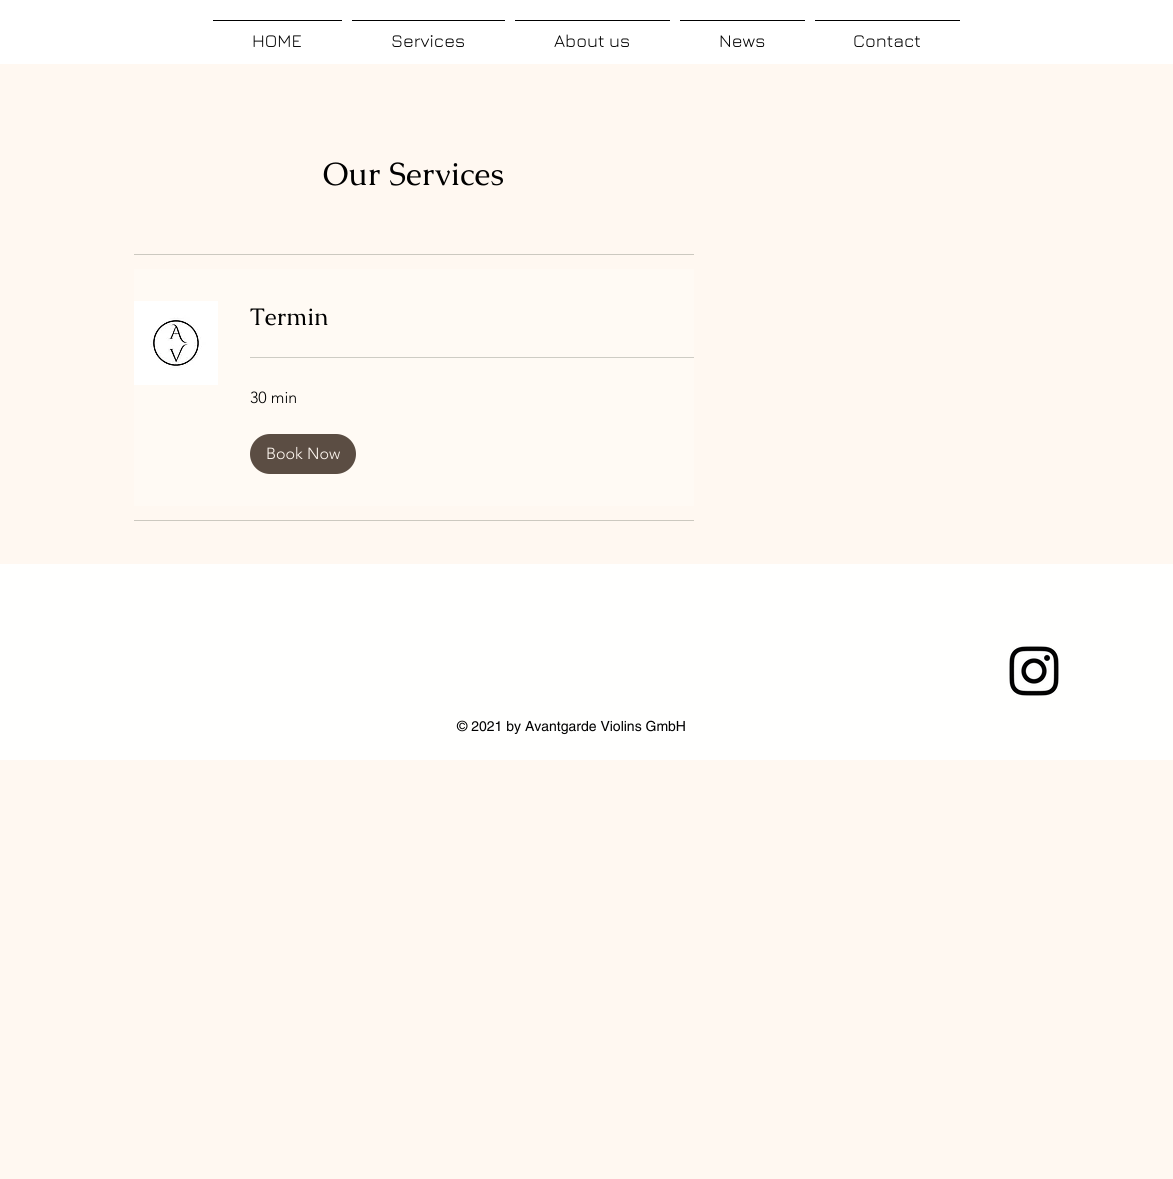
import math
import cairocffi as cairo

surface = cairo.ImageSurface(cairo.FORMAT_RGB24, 1173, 1179)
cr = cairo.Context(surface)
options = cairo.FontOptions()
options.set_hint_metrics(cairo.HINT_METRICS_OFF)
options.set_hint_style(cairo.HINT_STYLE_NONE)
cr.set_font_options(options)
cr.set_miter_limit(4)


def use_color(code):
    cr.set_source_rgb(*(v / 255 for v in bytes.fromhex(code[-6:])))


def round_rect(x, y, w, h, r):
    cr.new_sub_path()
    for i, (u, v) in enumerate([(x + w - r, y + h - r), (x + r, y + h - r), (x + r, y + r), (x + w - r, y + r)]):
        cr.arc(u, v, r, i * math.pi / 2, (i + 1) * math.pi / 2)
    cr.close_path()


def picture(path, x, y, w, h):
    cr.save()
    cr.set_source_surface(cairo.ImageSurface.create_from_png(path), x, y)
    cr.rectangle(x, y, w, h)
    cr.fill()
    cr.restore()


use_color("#fff8f1")
cr.paint()
use_color("#ffffff")
cr.rectangle(0, 0, 1173, 64)
cr.fill()
use_color("#000000")
cr.rectangle(213, 20, 129, 1)
cr.fill()
cr.select_font_face("Jura")
cr.set_font_size(18)
cr.move_to(252, 47)
cr.show_text("HOME")
cr.rectangle(352, 20, 153, 1)
cr.fill()
cr.move_to(391, 47)
cr.show_text("Services")
cr.rectangle(515, 20, 155, 1)
cr.fill()
cr.move_to(554, 47)
cr.show_text("About us")
cr.rectangle(680, 20, 125, 1)
cr.fill()
cr.move_to(719, 47)
cr.show_text("News")
cr.rectangle(815, 20, 145, 1)
cr.fill()
cr.move_to(853, 47)
cr.show_text("Contact")
cr.select_font_face("Caudex")
cr.set_font_size(32)
cr.move_to(323, 185)
cr.show_text("Our Services")
use_color("#ccc9c0")
cr.rectangle(134, 254, 560, 1)
cr.fill()
use_color("#fffaf4")
cr.rectangle(134, 269, 560, 237)
cr.fill()
picture("img1.png", 134, 301, 84, 84)
cr.set_font_size(24)
use_color("#000000")
cr.move_to(250, 325)
cr.show_text("Termin")
use_color("#ceccc4")
cr.rectangle(250, 357, 444, 1)
cr.fill()
cr.select_font_face("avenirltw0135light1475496 Light")
cr.set_font_size(16)
use_color("#000000")
cr.move_to(250, 403)
cr.show_text("30 min")
use_color("#5b4d43")
round_rect(250, 434, 106, 40, 20)
cr.fill()
use_color("#fff8f1")
cr.move_to(266, 459)
cr.show_text("Book Now")
use_color("#ccc9c0")
cr.rectangle(134, 520, 560, 1)
cr.fill()
use_color("#fffffe")
cr.rectangle(0, 564, 1173, 196)
cr.fill()
picture("img2.png", 1009, 646, 50, 50)
cr.select_font_face("helvetica")
cr.set_font_size(14)
use_color("#000000")
cr.move_to(457, 731)
cr.show_text("© 2021 by Avantgarde Violins GmbH")
surface.write_to_png("result.png")
